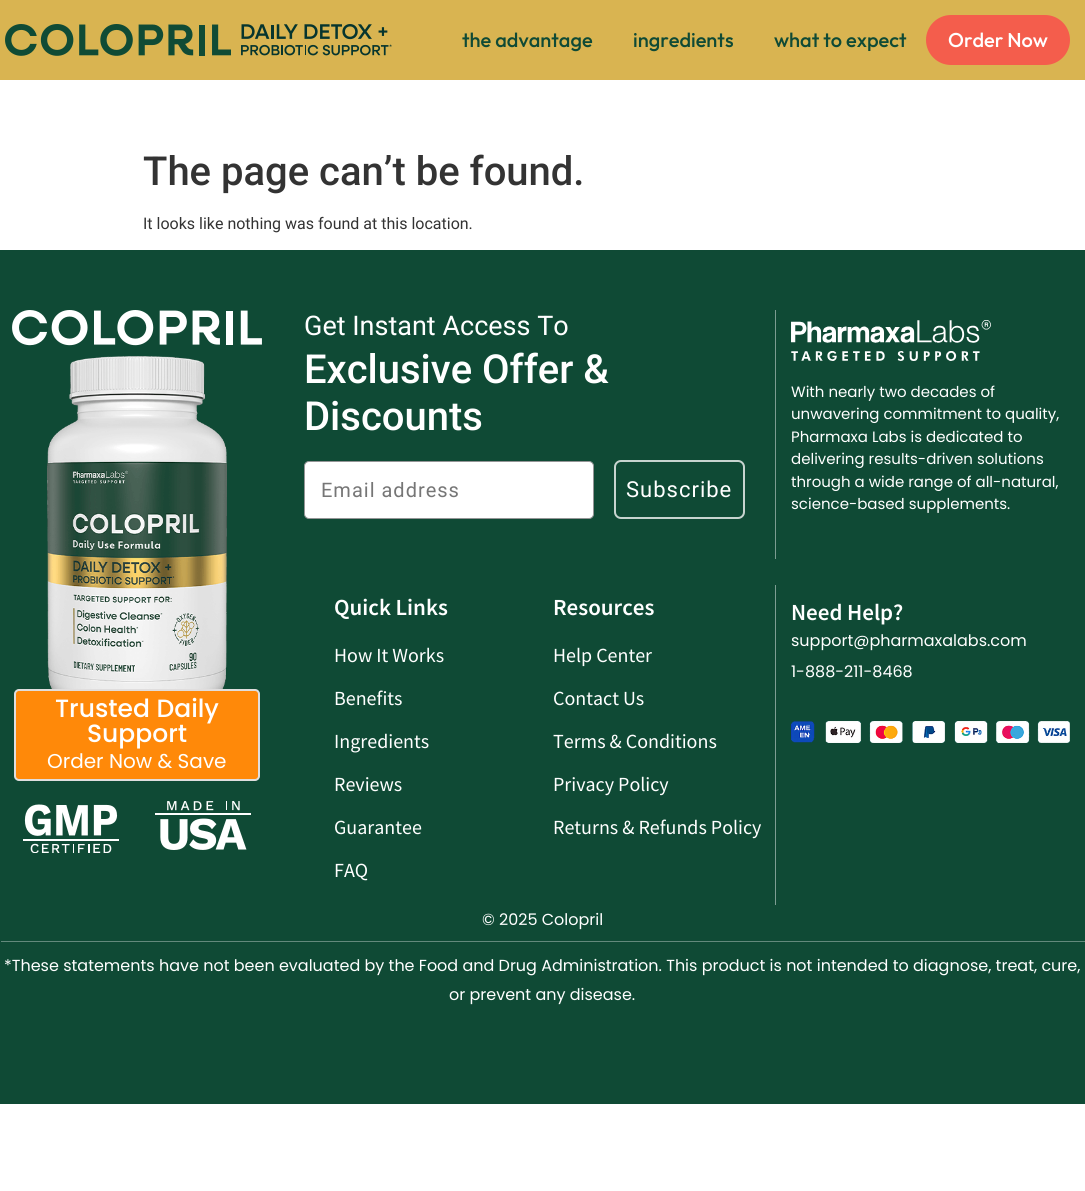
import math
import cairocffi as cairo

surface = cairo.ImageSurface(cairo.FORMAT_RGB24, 1085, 1191)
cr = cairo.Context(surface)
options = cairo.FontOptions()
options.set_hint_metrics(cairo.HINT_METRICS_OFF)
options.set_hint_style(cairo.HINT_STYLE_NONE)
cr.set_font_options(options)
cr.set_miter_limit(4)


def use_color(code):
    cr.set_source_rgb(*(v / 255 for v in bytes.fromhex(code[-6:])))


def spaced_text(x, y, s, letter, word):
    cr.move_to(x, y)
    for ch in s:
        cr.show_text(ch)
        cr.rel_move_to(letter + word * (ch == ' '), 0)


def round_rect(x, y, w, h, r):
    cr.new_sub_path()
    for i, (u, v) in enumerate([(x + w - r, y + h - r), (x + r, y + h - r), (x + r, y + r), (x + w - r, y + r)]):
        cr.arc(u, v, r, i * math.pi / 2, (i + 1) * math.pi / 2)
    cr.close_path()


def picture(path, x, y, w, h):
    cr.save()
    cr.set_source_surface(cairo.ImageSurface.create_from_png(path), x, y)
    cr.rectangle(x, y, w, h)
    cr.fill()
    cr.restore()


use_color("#ffffff")
cr.paint()
use_color("#d9b451")
cr.rectangle(0, 0, 1085, 80)
cr.fill()
picture("img1.png", 5, 24, 226, 32)
picture("img2.png", 241, 24, 151, 32)
cr.select_font_face("Outfit Medium")
cr.set_font_size(20)
use_color("#0f4a35")
cr.move_to(462, 47)
cr.show_text("the advantage")
cr.move_to(633, 47)
cr.show_text("ingredients")
cr.move_to(774, 47)
cr.show_text("what to expect")
use_color("#f45d4c")
round_rect(927, 16, 142, 48, 24)
cr.fill_preserve()
cr.stroke()
use_color("#ffffff")
cr.move_to(948, 47)
cr.show_text("Order Now")
cr.select_font_face("Roboto Medium")
cr.set_font_size(40)
use_color("#333333")
cr.move_to(143, 185)
cr.show_text("The page can’t be found.")
cr.select_font_face("Roboto")
cr.set_font_size(16)
cr.move_to(143, 229)
cr.show_text("It looks like nothing was found at this location.")
use_color("#0f4a35")
cr.rectangle(0, 250, 1085, 854)
cr.fill()
picture("img3.png", 12, 310, 250, 36)
picture("img4.png", 47, 356, 180, 333)
use_color("#ff8909")
round_rect(15, 690, 244, 90, 4)
cr.fill_preserve()
use_color("#e0dede")
cr.stroke()
cr.select_font_face("Poppins Medium")
cr.set_font_size(25)
use_color("#ffffff")
cr.move_to(55, 717)
cr.show_text("Trusted Daily")
cr.move_to(87, 742)
cr.show_text("Support")
cr.select_font_face("Poppins")
cr.set_font_size(20)
cr.move_to(47, 768)
cr.show_text("Order Now & Save")
picture("img5.png", 23, 801, 228, 52)
cr.select_font_face("Roboto")
cr.set_font_size(27)
cr.move_to(304, 335)
cr.show_text("Get Instant Access To")
cr.select_font_face("Roboto Medium")
cr.set_font_size(40)
cr.move_to(304, 383)
cr.show_text("Exclusive Offer &")
cr.move_to(304, 430)
cr.show_text("Discounts")
round_rect(304.5, 461.5, 289, 57, 4.5)
cr.fill_preserve()
use_color("#949596")
cr.set_line_width(1)
cr.stroke()
cr.select_font_face("Roboto")
cr.set_font_size(20)
use_color("#767676")
spaced_text(321, 497, "Email address", 1, 0)
round_rect(615, 461, 129, 57, 6)
use_color("#c7d4cf")
cr.set_line_width(2)
cr.stroke()
cr.set_font_size(22)
use_color("#ffffff")
spaced_text(626, 497, "Subscribe", 1, 0)
use_color("#7c9c91")
cr.rectangle(775, 310, 1, 249)
cr.fill()
picture("img6.png", 791, 320, 200, 41)
cr.select_font_face("Poppins")
cr.set_font_size(15)
use_color("#ffffff")
cr.move_to(791, 397)
cr.show_text("With nearly two decades of")
cr.move_to(791, 419)
cr.show_text("unwavering commitment to quality,")
cr.move_to(791, 442)
cr.show_text("Pharmaxa Labs is dedicated to")
cr.move_to(791, 464)
cr.show_text("delivering results-driven solutions")
cr.move_to(791, 487)
cr.show_text("through a wide range of all-natural,")
cr.move_to(791, 509)
cr.show_text("science-based supplements.")
cr.select_font_face("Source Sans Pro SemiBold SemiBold")
cr.set_font_size(23)
cr.move_to(334, 615)
cr.show_text("Quick Links")
cr.select_font_face("Source Sans Pro")
cr.set_font_size(20)
cr.move_to(334, 662)
cr.show_text("How It Works")
cr.move_to(334, 705)
cr.show_text("Benefits")
cr.move_to(334, 748)
cr.show_text("Ingredients")
cr.move_to(334, 791)
cr.show_text("Reviews")
cr.move_to(334, 834)
cr.show_text("Guarantee")
cr.move_to(334, 877)
cr.show_text("FAQ")
cr.select_font_face("Source Sans Pro SemiBold SemiBold")
cr.set_font_size(23)
cr.move_to(553, 615)
cr.show_text("Resources")
cr.select_font_face("Source Sans Pro")
cr.set_font_size(20)
cr.move_to(553, 662)
cr.show_text("Help Center")
cr.move_to(553, 705)
cr.show_text("Contact Us")
cr.move_to(553, 748)
cr.show_text("Terms & Conditions")
cr.move_to(553, 791)
cr.show_text("Privacy Policy")
cr.move_to(553, 834)
cr.show_text("Returns & Refunds Policy")
use_color("#7e9e93")
cr.rectangle(775, 585, 1, 320)
cr.fill()
cr.select_font_face("Source Sans Pro SemiBold SemiBold")
cr.set_font_size(23)
use_color("#ffffff")
cr.move_to(791, 620)
cr.show_text("Need Help?")
cr.select_font_face("Poppins")
cr.set_font_size(16)
cr.move_to(791, 646)
cr.show_text("support@pharmaxalabs.com")
cr.move_to(791, 677)
cr.show_text("1-888-211-8468")
picture("img7.png", 791, 721, 279, 22)
cr.move_to(482, 925)
cr.show_text("© 2025 Colopril")
use_color("#63897c")
cr.rectangle(1, 941, 1084, 1)
cr.fill()
use_color("#ffffff")
cr.move_to(4, 971)
cr.show_text("*These statements have not been evaluated by the Food and Drug Administration. This product is not intended to diagnose, treat, cure,")
cr.move_to(449, 1000)
cr.show_text("or prevent any disease.")
surface.write_to_png("result.png")
